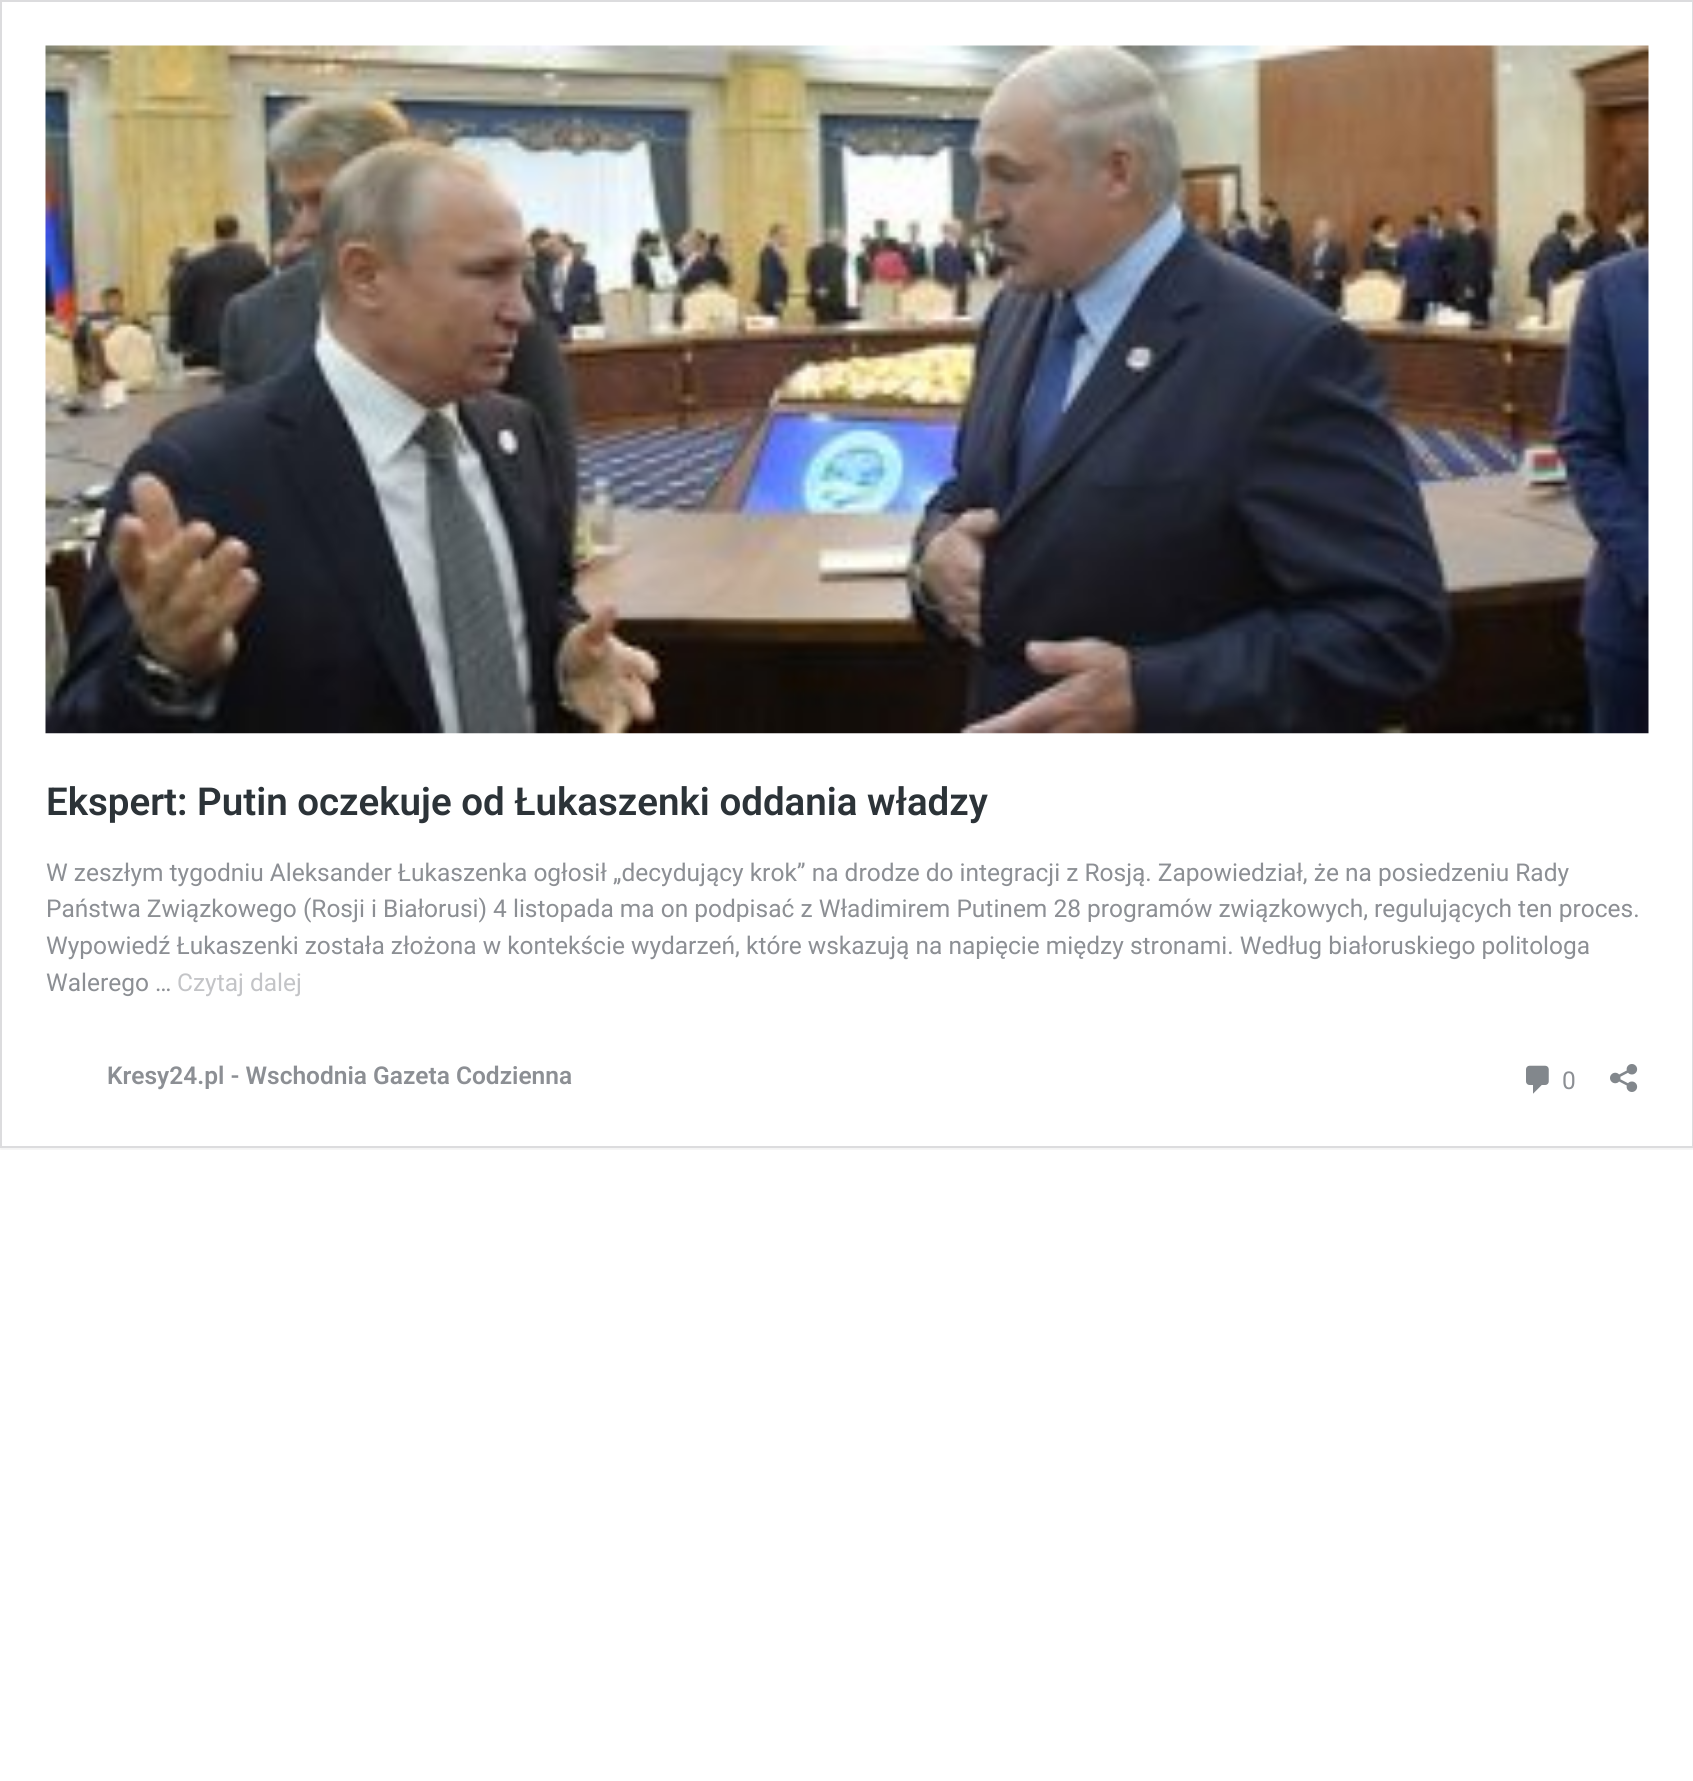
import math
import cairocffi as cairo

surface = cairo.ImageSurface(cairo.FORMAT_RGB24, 1693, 1781)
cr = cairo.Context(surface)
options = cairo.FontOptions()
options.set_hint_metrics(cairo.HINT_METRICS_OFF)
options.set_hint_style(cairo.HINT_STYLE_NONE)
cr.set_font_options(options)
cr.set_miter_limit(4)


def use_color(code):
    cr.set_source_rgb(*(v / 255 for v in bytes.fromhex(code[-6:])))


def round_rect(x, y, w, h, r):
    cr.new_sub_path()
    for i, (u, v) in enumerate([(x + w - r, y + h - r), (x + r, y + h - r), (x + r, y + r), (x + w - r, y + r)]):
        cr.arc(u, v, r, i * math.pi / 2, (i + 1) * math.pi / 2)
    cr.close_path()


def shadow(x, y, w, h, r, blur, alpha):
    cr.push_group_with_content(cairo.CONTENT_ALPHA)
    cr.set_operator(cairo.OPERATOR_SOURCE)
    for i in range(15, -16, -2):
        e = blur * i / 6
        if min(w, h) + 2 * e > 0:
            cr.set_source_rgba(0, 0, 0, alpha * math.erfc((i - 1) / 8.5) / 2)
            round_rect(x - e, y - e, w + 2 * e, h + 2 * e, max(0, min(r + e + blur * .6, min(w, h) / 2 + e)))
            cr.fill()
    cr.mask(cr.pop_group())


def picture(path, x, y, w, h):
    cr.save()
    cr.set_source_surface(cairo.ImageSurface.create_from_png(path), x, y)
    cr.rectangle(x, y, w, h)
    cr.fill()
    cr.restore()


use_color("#ffffff")
cr.paint()
cr.save()
cr.rectangle(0, 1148, 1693, 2)
cr.clip()
use_color("#000000")
shadow(0, 2, 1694, 1148, 0, 1, 0.05)
cr.restore()
cr.rectangle(1, 1, 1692, 1146)
use_color("#dcdcde")
cr.stroke()
picture("img1.png", 45, 45, 1604, 689)
cr.select_font_face("Roboto SemiBold")
cr.set_font_size(38.5)
use_color("#2c3338")
cr.move_to(46, 815)
cr.show_text("Ekspert: Putin oczekuje od Łukaszenki oddania władzy")
cr.select_font_face("Roboto")
cr.set_font_size(24.5)
use_color("#8c8f94")
cr.move_to(46, 881)
cr.show_text("W zeszłym tygodniu Aleksander Łukaszenka ogłosił „decydujący krok” na drodze do integracji z Rosją. Zapowiedział, że na posiedzeniu Rady")
cr.move_to(46, 917)
cr.show_text("Państwa Związkowego (Rosji i Białorusi) 4 listopada ma on podpisać z Władimirem Putinem 28 programów związkowych, regulujących ten proces.")
cr.move_to(46, 954)
cr.show_text("Wypowiedź Łukaszenki została złożona w kontekście wydarzeń, które wskazują na napięcie między stronami. Według białoruskiego politologa")
cr.move_to(46, 991)
cr.show_text("Walerego …")
use_color("#c3c4c7")
cr.move_to(177, 991)
cr.show_text("Czytaj dalej")
cr.select_font_face("Roboto SemiBold")
use_color("#8c8f94")
cr.move_to(107, 1084)
cr.show_text("Kresy24.pl - Wschodnia Gazeta Codzienna")
picture("img2.png", 1526, 1065, 23, 29)
cr.select_font_face("Roboto")
cr.move_to(1562, 1089)
cr.show_text("0")
picture("img3.png", 1610, 1064, 28, 28)
surface.write_to_png("result.png")
